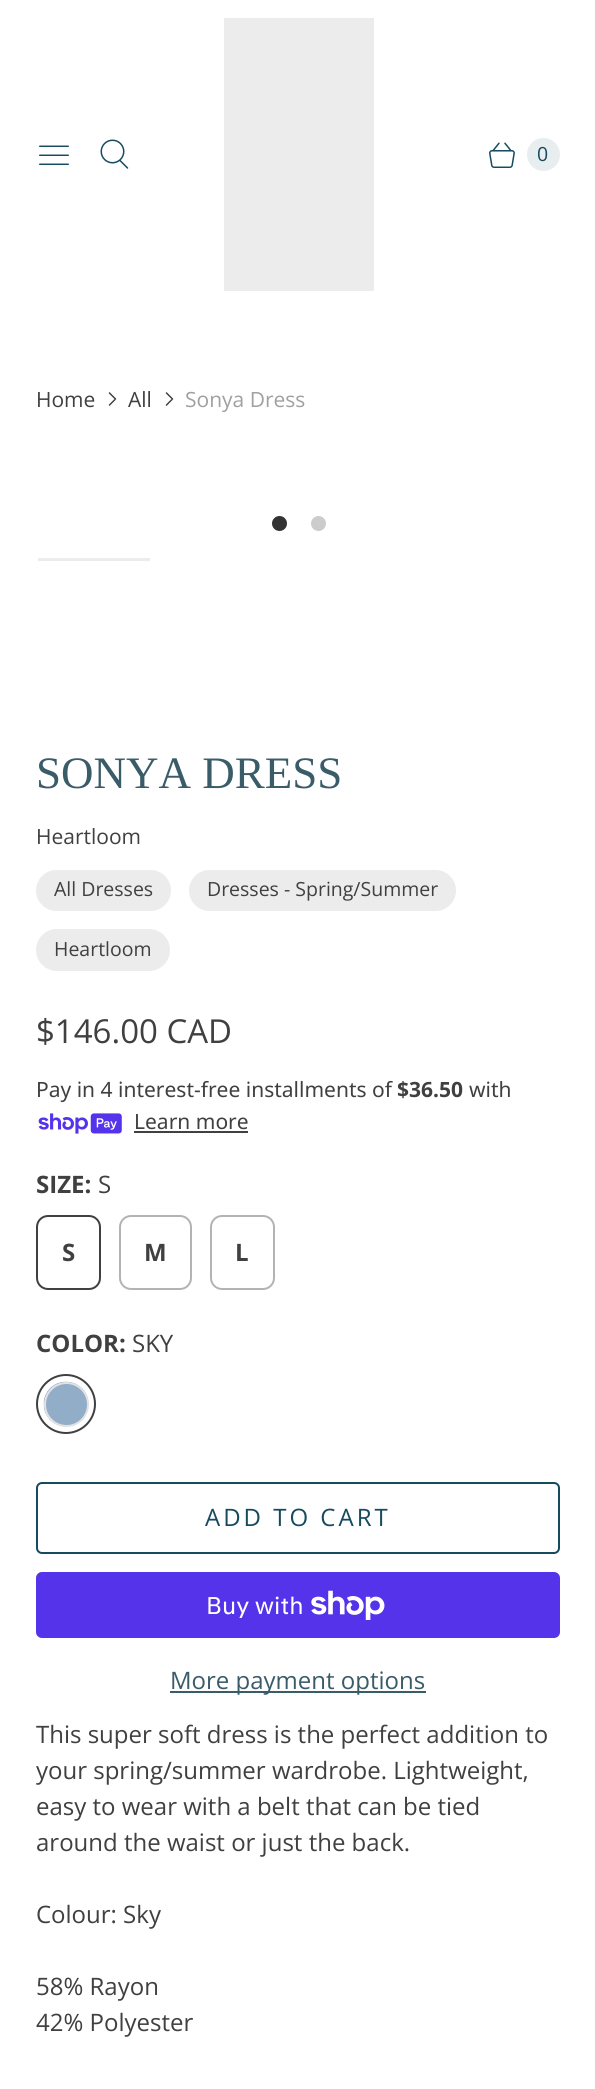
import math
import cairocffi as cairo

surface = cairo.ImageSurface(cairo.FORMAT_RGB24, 595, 2089)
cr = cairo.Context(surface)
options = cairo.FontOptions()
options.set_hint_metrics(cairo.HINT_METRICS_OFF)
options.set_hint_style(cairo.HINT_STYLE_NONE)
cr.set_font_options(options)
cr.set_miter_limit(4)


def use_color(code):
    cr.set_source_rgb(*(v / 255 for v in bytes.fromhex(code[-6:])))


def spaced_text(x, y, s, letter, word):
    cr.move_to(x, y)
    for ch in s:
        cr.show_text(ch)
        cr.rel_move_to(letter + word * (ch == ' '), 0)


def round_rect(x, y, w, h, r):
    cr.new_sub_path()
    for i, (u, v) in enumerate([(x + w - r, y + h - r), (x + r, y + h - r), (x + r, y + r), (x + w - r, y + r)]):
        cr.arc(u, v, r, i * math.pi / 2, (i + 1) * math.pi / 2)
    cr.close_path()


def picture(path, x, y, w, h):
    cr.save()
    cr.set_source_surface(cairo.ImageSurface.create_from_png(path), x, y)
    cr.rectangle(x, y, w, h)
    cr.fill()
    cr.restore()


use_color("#ffffff")
cr.paint()
picture("img1.png", 39, 145, 30, 20)
picture("img2.png", 100, 139, 29, 30)
use_color("#ececec")
cr.rectangle(224, 18, 150, 273)
cr.fill()
picture("img3.png", 489, 142, 26, 26)
use_color("#e8edef")
cr.arc(543.5, 154.5, 16.5, 0, 2 * math.pi)
cr.fill()
cr.select_font_face("Open Sans")
cr.set_font_size(19.5)
use_color("#154a5f")
cr.move_to(537, 161)
cr.show_text("0")
cr.set_font_size(21)
use_color("#404040")
cr.move_to(36, 407)
cr.show_text("Home")
picture("img4.png", 108, 392, 9, 14)
cr.move_to(128, 407)
cr.show_text("All")
picture("img4.png", 165, 392, 9, 14)
use_color("#a0a0a0")
cr.move_to(185, 407)
cr.show_text("Sonya Dress")
use_color("#333333")
cr.new_path()
cr.arc(279.5, 523.5, 7.5, 0, 2 * math.pi)
cr.fill()
use_color("#cccccc")
cr.arc(318.5, 523.5, 7.5, 0, 2 * math.pi)
cr.fill()
use_color("#ececec")
cr.rectangle(38, 558, 112, 3)
cr.fill()
cr.select_font_face("Liberation Serif")
cr.set_font_size(45)
use_color("#3a5c69")
cr.move_to(36, 788)
cr.show_text("SONYA DRESS")
cr.select_font_face("Open Sans")
cr.set_font_size(21)
use_color("#404040")
cr.move_to(36, 844)
cr.show_text("Heartloom")
use_color("#ececec")
round_rect(36, 870, 135, 41, 20.5)
cr.fill()
cr.set_font_size(19.5)
use_color("#404040")
cr.move_to(54, 896)
cr.show_text("All Dresses")
use_color("#ececec")
round_rect(189, 870, 267, 41, 20.5)
cr.fill()
use_color("#404040")
cr.move_to(207, 896)
cr.show_text("Dresses - Spring/Summer")
use_color("#ececec")
round_rect(36, 929, 134, 42, 21)
cr.fill()
use_color("#404040")
cr.move_to(54, 956)
cr.show_text("Heartloom")
cr.set_font_size(33)
cr.move_to(36, 1043)
cr.show_text("$146.00 CAD")
cr.select_font_face("Noto Sans")
cr.set_font_size(21)
cr.move_to(36, 1097)
cr.show_text("Pay in 4 interest-free installments of")
cr.select_font_face("Noto Sans", cairo.FONT_SLANT_NORMAL, cairo.FONT_WEIGHT_BOLD)
cr.move_to(397, 1097)
cr.show_text("$36.50")
cr.select_font_face("Noto Sans")
cr.move_to(469, 1097)
cr.show_text("with")
picture("img5.png", 38, 1113, 84, 21)
cr.move_to(134, 1129)
cr.show_text("Learn more")
cr.rectangle(134, 1131, 114, 2)
cr.fill()
cr.select_font_face("Open Sans", cairo.FONT_SLANT_NORMAL, cairo.FONT_WEIGHT_BOLD)
cr.set_font_size(24)
cr.move_to(36, 1193)
cr.show_text("SIZE:")
cr.select_font_face("Open Sans")
cr.move_to(98, 1193)
cr.show_text("S")
round_rect(37, 1216, 63, 73, 11)
cr.stroke()
cr.select_font_face("Open Sans", cairo.FONT_SLANT_NORMAL, cairo.FONT_WEIGHT_BOLD)
cr.move_to(62, 1261)
cr.show_text("S")
round_rect(120, 1216, 71, 73, 11)
use_color("#b3b3b3")
cr.stroke()
use_color("#404040")
cr.move_to(144, 1261)
cr.show_text("M")
round_rect(211, 1216, 63, 73, 11)
use_color("#b3b3b3")
cr.stroke()
use_color("#404040")
cr.move_to(235, 1261)
cr.show_text("L")
cr.move_to(36, 1352)
cr.show_text("COLOR:")
cr.select_font_face("Open Sans")
cr.move_to(132, 1352)
cr.show_text("SKY")
cr.new_path()
cr.arc(66, 1404, 29, 0, 2 * math.pi)
cr.stroke()
picture("img6.png", 43, 1381, 46, 46)
cr.arc(66.5, 1404.5, 21.5, 0, 2 * math.pi)
use_color("#e2e2e2")
cr.stroke()
round_rect(37, 1483, 522, 70, 5)
use_color("#154a5f")
cr.stroke()
spaced_text(205, 1526, "ADD TO CART", 3, 0)
use_color("#5433eb")
round_rect(36, 1572, 524, 66, 6)
cr.fill()
cr.select_font_face("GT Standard")
use_color("#ffffff")
cr.move_to(206, 1614)
cr.show_text("Buy with")
picture("img7.png", 311, 1590, 74, 30)
use_color("#3a5c69")
cr.rectangle(170, 1691, 256, 2)
cr.fill()
cr.select_font_face("Open Sans")
cr.move_to(170, 1689)
cr.show_text("More payment options")
use_color("#404040")
cr.move_to(36, 1743)
cr.show_text("This super soft dress is the perfect addition to")
cr.move_to(36, 1779)
cr.show_text("your spring/summer wardrobe. Lightweight,")
cr.move_to(36, 1815)
cr.show_text("easy to wear with a belt that can be tied")
cr.move_to(36, 1851)
cr.show_text("around the waist or just the back.")
cr.move_to(36, 1923)
cr.show_text("Colour: Sky")
cr.move_to(36, 1995)
cr.show_text("58% Rayon")
cr.move_to(36, 2031)
cr.show_text("42% Polyester")
surface.write_to_png("result.png")
